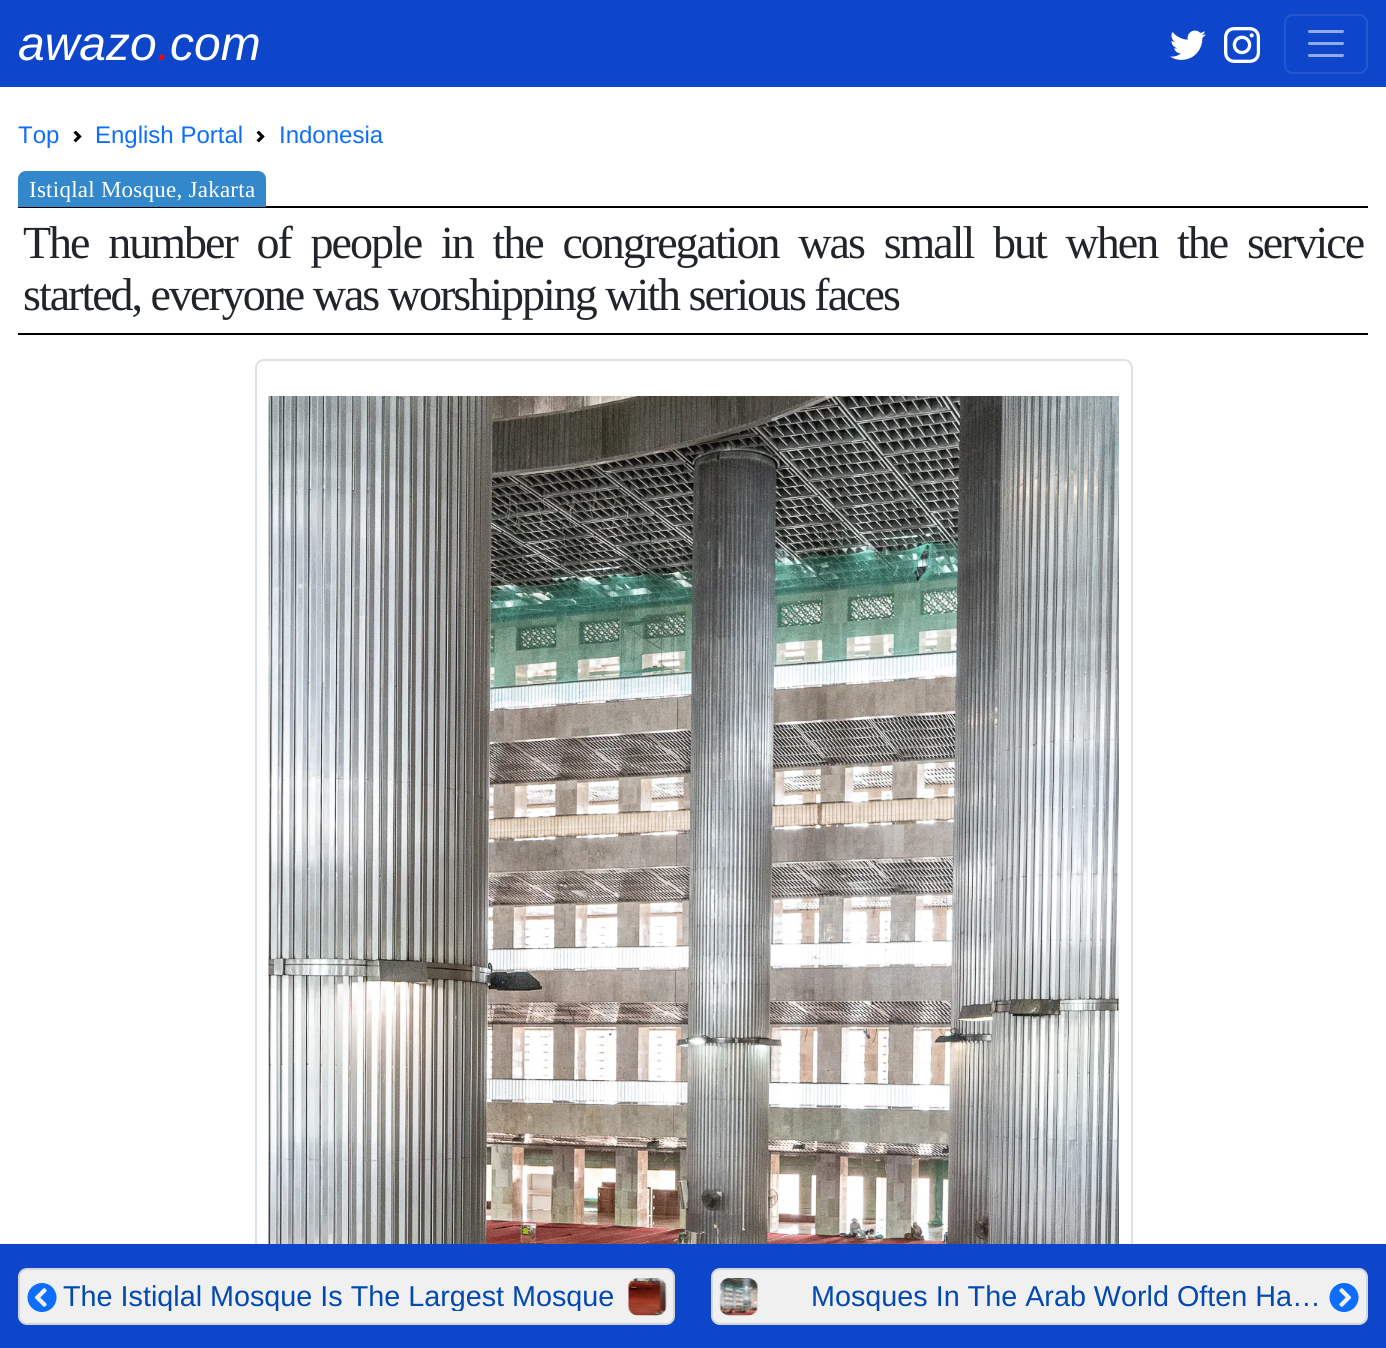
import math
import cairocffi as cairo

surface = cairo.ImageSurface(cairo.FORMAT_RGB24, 1386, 1348)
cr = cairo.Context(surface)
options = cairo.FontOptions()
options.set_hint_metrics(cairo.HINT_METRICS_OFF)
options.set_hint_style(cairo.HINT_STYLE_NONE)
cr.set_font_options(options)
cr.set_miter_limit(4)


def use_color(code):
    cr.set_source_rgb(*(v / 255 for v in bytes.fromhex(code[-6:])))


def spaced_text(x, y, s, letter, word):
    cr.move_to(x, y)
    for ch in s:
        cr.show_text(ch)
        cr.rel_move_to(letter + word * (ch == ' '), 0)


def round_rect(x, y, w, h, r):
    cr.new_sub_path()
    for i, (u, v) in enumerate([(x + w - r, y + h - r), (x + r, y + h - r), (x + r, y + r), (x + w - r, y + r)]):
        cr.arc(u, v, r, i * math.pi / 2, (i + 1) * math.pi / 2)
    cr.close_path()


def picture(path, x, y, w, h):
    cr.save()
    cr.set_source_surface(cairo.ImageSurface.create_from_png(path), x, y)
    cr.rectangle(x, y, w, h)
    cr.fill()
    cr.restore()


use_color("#ffffff")
cr.paint()
use_color("#0d45cb")
cr.rectangle(0, 0, 1386, 87)
cr.fill()
cr.select_font_face("Liberation Sans", cairo.FONT_SLANT_ITALIC)
cr.set_font_size(48)
use_color("#ffffff")
cr.move_to(18, 60)
cr.show_text("awazo com")
use_color("#ff0000")
cr.move_to(157, 60)
cr.show_text(".")
picture("img1.png", 1170, 30, 36, 30)
picture("img2.png", 1224, 27, 36, 36)
round_rect(1285, 15, 82, 58, 8)
use_color("#2558d0")
cr.stroke()
cr.new_path()
cr.move_to(1309.5, 31.5)
cr.line_to(1342.5, 31.5)
cr.move_to(1309.5, 43.5)
cr.line_to(1342.5, 43.5)
cr.move_to(1309.5, 55.5)
cr.line_to(1342.5, 55.5)
use_color("#92abe8")
cr.set_line_width(3)
cr.set_line_cap(cairo.LINE_CAP_ROUND)
cr.stroke()
cr.select_font_face("Liberation Sans")
cr.set_font_size(24)
use_color("#0d6efd")
cr.move_to(18, 143)
cr.show_text("Top")
picture("img3.png", 73, 131, 9, 12)
cr.move_to(95, 143)
cr.show_text("English Portal")
picture("img3.png", 256, 131, 9, 12)
cr.move_to(279, 143)
cr.show_text("Indonesia")
use_color("#000000")
cr.rectangle(18, 206, 1350, 2)
cr.fill()
cr.rectangle(18, 333, 1350, 2)
cr.fill()
use_color("#3388cc")
cr.new_path()
cr.move_to(26, 171)
cr.line_to(258, 171)
cr.curve_to(262.5, 171, 266, 174.5, 266, 179)
cr.line_to(266, 207)
cr.line_to(18, 207)
cr.line_to(18, 179)
cr.curve_to(18, 174.5, 21.5, 171, 26, 171)
cr.close_path()
cr.fill()
cr.select_font_face("Liberation Serif")
cr.set_font_size(23)
use_color("#ffffff")
spaced_text(29, 197, "Istiqlal Mosque, Jakarta", 0.25, 0)
cr.set_font_size(46)
use_color("#212529")
spaced_text(23, 258, "The number of people in the congregation was small but when the service", -2, 10.25)
spaced_text(23, 310, "started, everyone was worshipping with serious faces", -2, 0)
round_rect(256, 360, 876, 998, 8)
use_color("#dee2e6")
cr.set_line_width(2)
cr.set_line_cap(cairo.LINE_CAP_BUTT)
cr.stroke()
picture("img4.png", 268, 396, 851, 848)
use_color("#0d45cb")
cr.rectangle(0, 1244, 1386, 104)
cr.fill()
use_color("#f0f0f0")
round_rect(19, 1269, 655, 55, 8)
cr.fill_preserve()
use_color("#d3d6d8")
cr.stroke()
picture("img5.png", 27, 1283, 30, 29)
cr.save()
cr.rectangle(63, 1281, 554, 30)
cr.clip()
cr.select_font_face("Liberation Sans")
cr.set_font_size(28.75)
use_color("#0249b1")
cr.move_to(63, 1306)
cr.show_text("The Istiqlal Mosque Is The Largest Mosque")
cr.restore()
picture("img6.png", 628, 1278, 39, 38)
use_color("#f0f0f0")
round_rect(712, 1269, 655, 55, 8)
cr.fill_preserve()
use_color("#d3d6d8")
cr.stroke()
picture("img7.png", 719, 1278, 39, 38)
cr.save()
cr.rectangle(764, 1281, 559, 30)
cr.clip()
cr.select_font_face("Liberation Sans")
cr.set_font_size(28.75)
use_color("#0249b1")
cr.move_to(811, 1306)
cr.show_text("Mosques In The Arab World Often Ha…")
cr.restore()
picture("img8.png", 1329, 1283, 30, 29)
surface.write_to_png("result.png")
